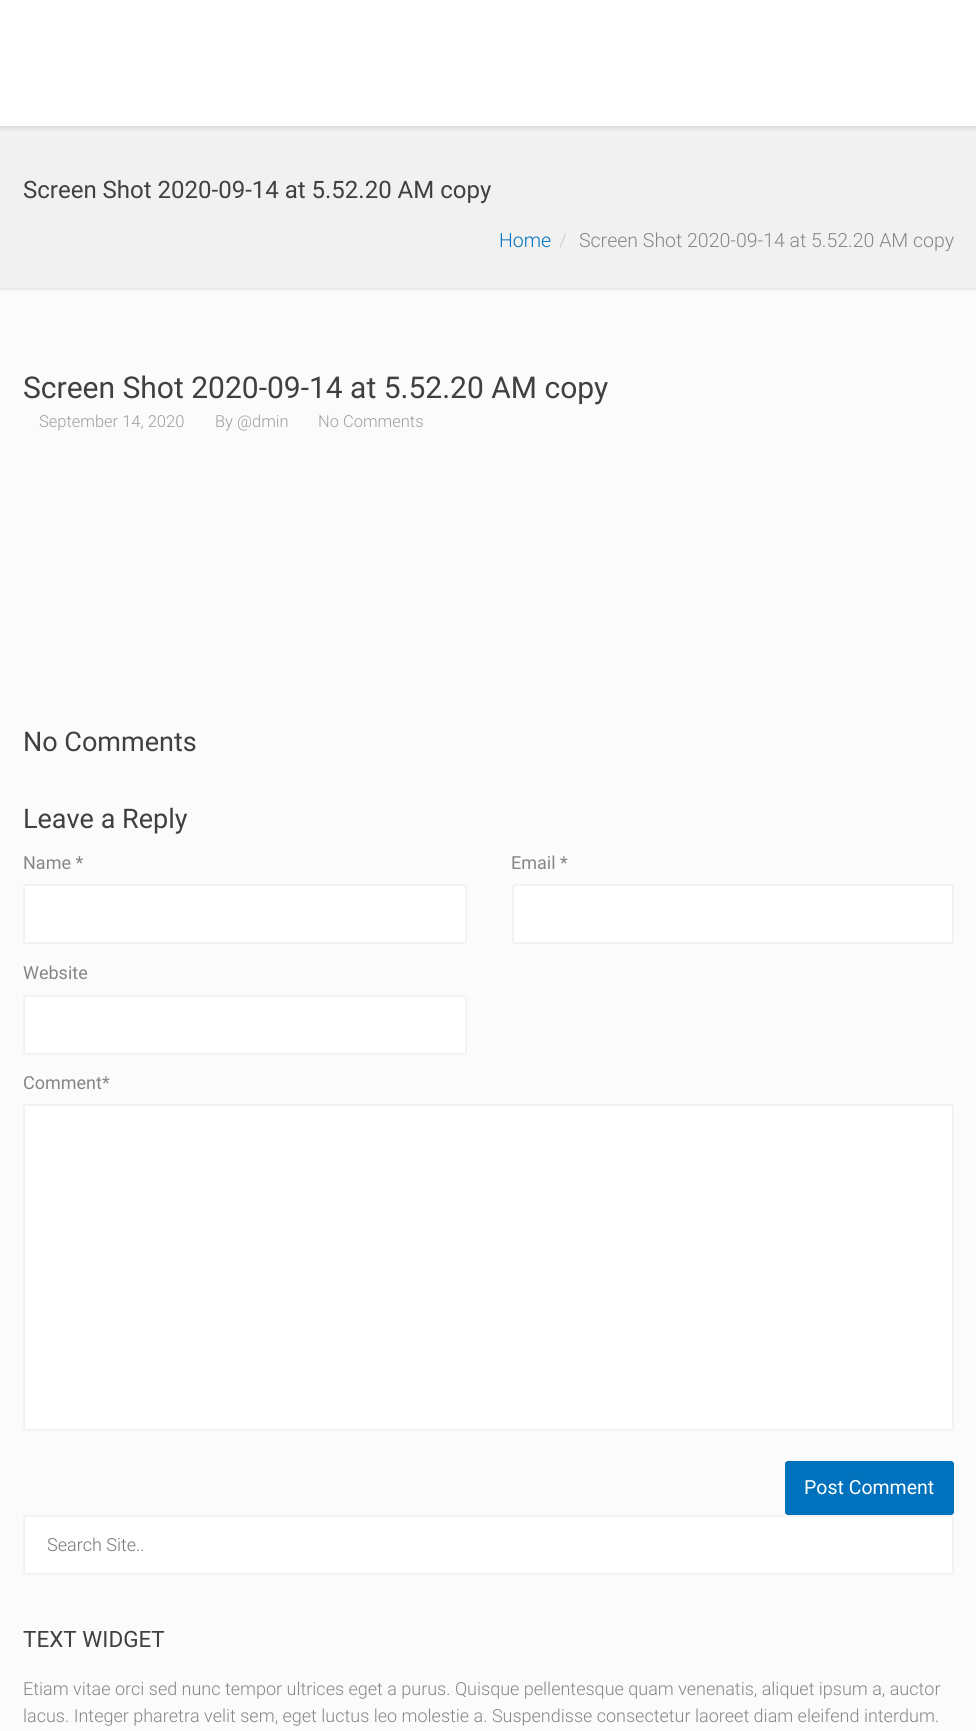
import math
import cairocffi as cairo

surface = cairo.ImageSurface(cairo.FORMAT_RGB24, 976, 1731)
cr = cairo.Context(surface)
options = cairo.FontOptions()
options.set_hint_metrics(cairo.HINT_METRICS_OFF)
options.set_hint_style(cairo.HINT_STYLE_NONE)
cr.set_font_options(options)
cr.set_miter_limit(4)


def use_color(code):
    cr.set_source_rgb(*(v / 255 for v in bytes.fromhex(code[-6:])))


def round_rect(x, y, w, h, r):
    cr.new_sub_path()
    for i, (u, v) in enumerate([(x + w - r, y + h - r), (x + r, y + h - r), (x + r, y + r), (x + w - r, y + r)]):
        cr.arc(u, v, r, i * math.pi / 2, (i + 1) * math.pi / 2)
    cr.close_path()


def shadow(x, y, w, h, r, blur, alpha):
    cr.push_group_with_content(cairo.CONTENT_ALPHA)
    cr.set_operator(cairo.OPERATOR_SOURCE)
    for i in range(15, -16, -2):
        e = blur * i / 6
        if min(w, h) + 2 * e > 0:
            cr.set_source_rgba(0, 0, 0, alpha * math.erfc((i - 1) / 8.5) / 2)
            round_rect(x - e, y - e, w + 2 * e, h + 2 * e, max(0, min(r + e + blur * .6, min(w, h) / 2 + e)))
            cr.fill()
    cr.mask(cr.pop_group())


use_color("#ffffff")
cr.paint()
use_color("#f1f1f1")
cr.rectangle(0, 126, 976, 162)
cr.fill()
cr.save()
cr.rectangle(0, 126, 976, 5)
cr.clip()
use_color("#000000")
shadow(0, 0, 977, 126, 0, 4, 0.19)
cr.restore()
use_color("#fbfbfb")
cr.rectangle(0, 290, 976, 1441)
cr.fill()
use_color("#eaeaea")
cr.rectangle(0, 288, 976, 2)
cr.fill()
cr.select_font_face("Roboto")
cr.set_font_size(24)
use_color("#404040")
cr.move_to(23, 198)
cr.show_text("Screen Shot 2020-09-14 at 5.52.20 AM copy")
cr.select_font_face("Roboto Light")
cr.set_font_size(19.5)
use_color("#0071bc")
cr.move_to(499, 247)
cr.show_text("Home")
use_color("#cccccc")
cr.move_to(559, 247)
cr.show_text("/")
use_color("#868686")
cr.move_to(579, 247)
cr.show_text("Screen Shot 2020-09-14 at 5.52.20 AM copy")
cr.select_font_face("Roboto")
cr.set_font_size(30)
use_color("#404040")
cr.move_to(23, 398)
cr.show_text("Screen Shot 2020-09-14 at 5.52.20 AM copy")
cr.select_font_face("Roboto Light")
cr.set_font_size(16.5)
use_color("#9d9d9d")
cr.move_to(39, 427)
cr.show_text("September 14, 2020")
cr.move_to(215, 427)
cr.show_text("By @dmin")
cr.move_to(318, 427)
cr.show_text("No Comments")
cr.select_font_face("Roboto")
cr.set_font_size(27)
use_color("#404040")
cr.move_to(23, 751)
cr.show_text("No Comments")
cr.move_to(23, 828)
cr.show_text("Leave a Reply")
cr.set_font_size(18)
use_color("#868686")
cr.move_to(23, 869)
cr.show_text("Name *")
use_color("#ffffff")
round_rect(24, 885, 442, 58, 2)
cr.fill_preserve()
use_color("#f2f2f2")
cr.stroke()
use_color("#868686")
cr.move_to(511, 869)
cr.show_text("Email *")
use_color("#ffffff")
round_rect(513, 885, 440, 58, 2)
cr.fill_preserve()
use_color("#f2f2f2")
cr.stroke()
use_color("#868686")
cr.move_to(23, 979)
cr.show_text("Website")
use_color("#ffffff")
round_rect(24, 996, 442, 58, 2)
cr.fill_preserve()
use_color("#f2f2f2")
cr.stroke()
use_color("#868686")
cr.move_to(23, 1089)
cr.show_text("Comment*")
use_color("#ffffff")
round_rect(24, 1105, 929, 325, 2)
cr.fill_preserve()
use_color("#f2f2f2")
cr.stroke()
use_color("#0071bc")
round_rect(786, 1462, 167, 52, 2)
cr.fill_preserve()
cr.stroke()
cr.set_font_size(19.5)
use_color("#ffffff")
cr.move_to(804, 1494)
cr.show_text("Post Comment")
round_rect(24, 1516, 929, 58, 2)
cr.fill_preserve()
use_color("#f2f2f2")
cr.stroke()
cr.select_font_face("Roboto Light")
cr.set_font_size(18)
use_color("#757575")
cr.move_to(47, 1551)
cr.show_text("Search Site..")
cr.select_font_face("Roboto")
cr.set_font_size(22.5)
use_color("#404040")
cr.move_to(23, 1647)
cr.show_text("TEXT WIDGET")
cr.select_font_face("Roboto Light")
cr.set_font_size(18)
use_color("#868686")
cr.move_to(23, 1695)
cr.show_text("Etiam vitae orci sed nunc tempor ultrices eget a purus. Quisque pellentesque quam venenatis, aliquet ipsum a, auctor")
cr.move_to(23, 1722)
cr.show_text("lacus. Integer pharetra velit sem, eget luctus leo molestie a. Suspendisse consectetur laoreet diam eleifend interdum.")
surface.write_to_png("result.png")
